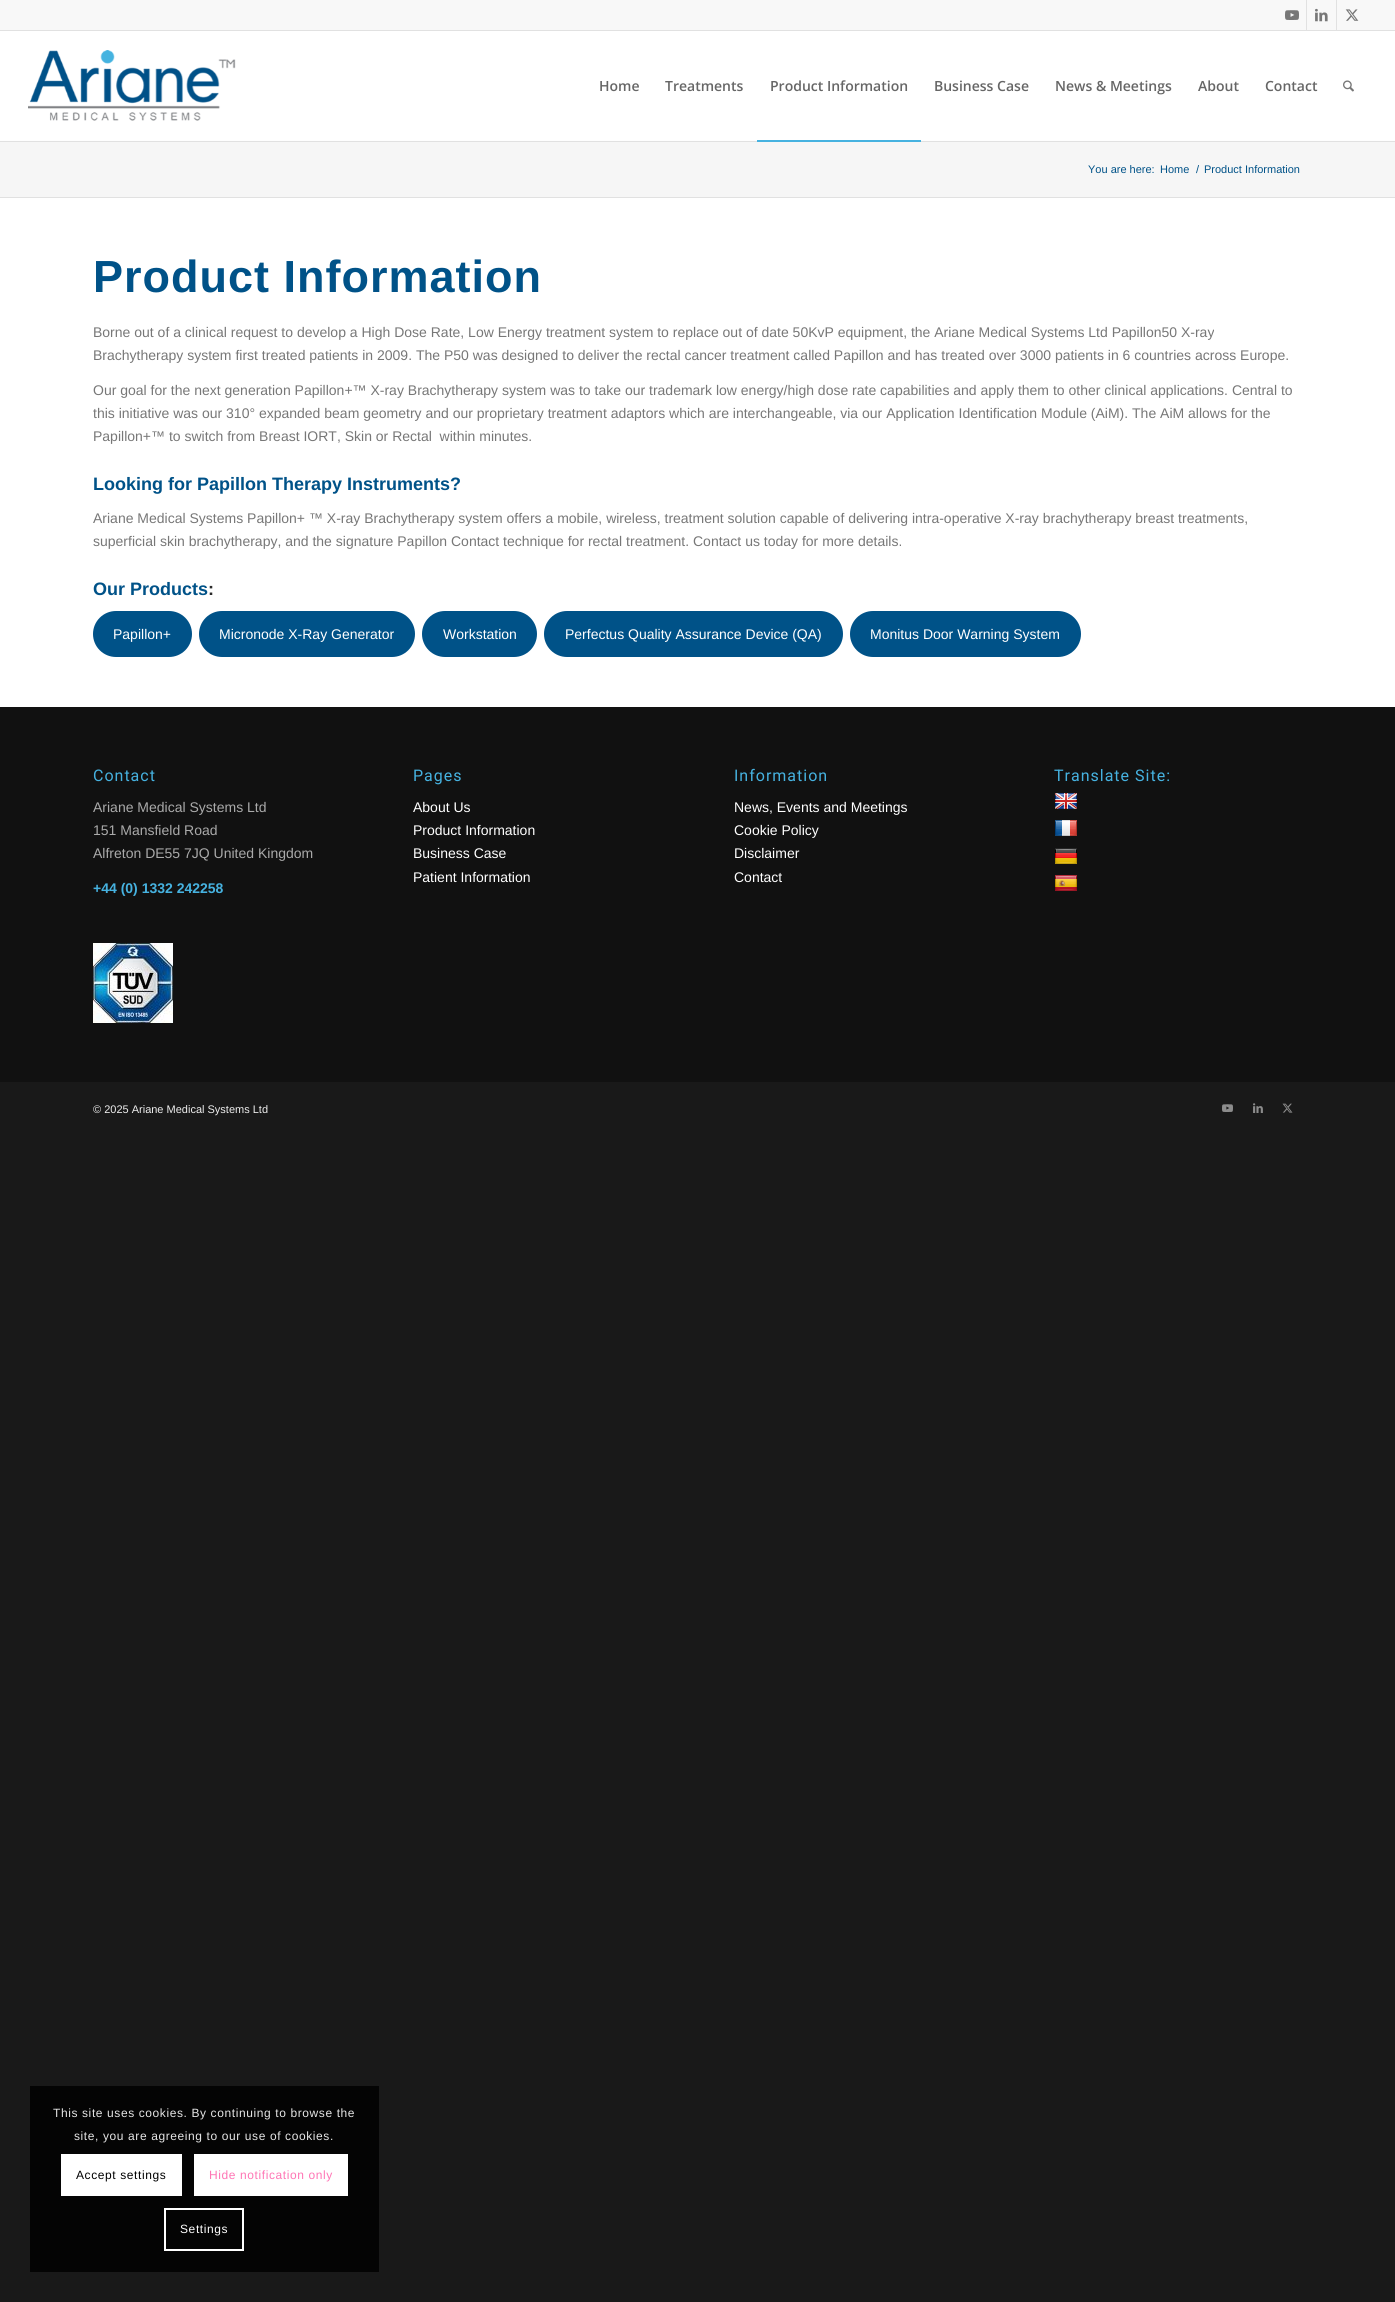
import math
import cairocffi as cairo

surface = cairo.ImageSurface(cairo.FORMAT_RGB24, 1395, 2302)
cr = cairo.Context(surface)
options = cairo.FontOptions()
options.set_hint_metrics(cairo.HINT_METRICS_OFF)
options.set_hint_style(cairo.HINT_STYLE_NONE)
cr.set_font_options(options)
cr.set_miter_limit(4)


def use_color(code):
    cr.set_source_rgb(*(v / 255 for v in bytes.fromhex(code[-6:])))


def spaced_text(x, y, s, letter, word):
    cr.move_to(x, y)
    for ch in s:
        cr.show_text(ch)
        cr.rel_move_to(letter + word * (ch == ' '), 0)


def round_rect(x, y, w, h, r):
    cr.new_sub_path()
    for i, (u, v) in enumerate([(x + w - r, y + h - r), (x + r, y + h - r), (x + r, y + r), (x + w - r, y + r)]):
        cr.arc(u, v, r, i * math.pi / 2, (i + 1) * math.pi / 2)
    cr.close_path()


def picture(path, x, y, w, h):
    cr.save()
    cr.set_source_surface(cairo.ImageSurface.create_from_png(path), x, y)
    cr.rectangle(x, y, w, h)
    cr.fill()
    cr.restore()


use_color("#191919")
cr.paint()
use_color("#ffffff")
cr.rectangle(0, 198, 1395, 509)
cr.fill()
cr.rectangle(0, 31, 1395, 109)
cr.fill()
use_color("#f8f8f8")
cr.rectangle(0, 0, 1395, 30)
cr.fill()
use_color("#e1e1e1")
cr.rectangle(0, 30, 1395, 1)
cr.fill()
cr.rectangle(1306, 0, 1, 30)
cr.fill()
picture("img1.png", 1285, 10, 14, 10)
cr.rectangle(1336, 0, 1, 30)
cr.fill()
picture("img2.png", 1315, 8, 13, 14)
picture("img3.png", 1345, 9, 14, 12)
cr.rectangle(0, 141, 1395, 1)
cr.fill()
picture("img4.png", 28, 50, 208, 71)
cr.select_font_face("Open Sans SemiBold")
cr.set_font_size(14)
use_color("#666666")
cr.move_to(599, 91)
cr.show_text("Home")
cr.move_to(665, 91)
cr.show_text("Treatments")
cr.move_to(770, 91)
cr.show_text("Product Information")
use_color("#fefefe")
cr.rectangle(0, 140, 1395, 1)
cr.fill()
use_color("#46b2e0")
cr.rectangle(757, 140, 164, 2)
cr.fill()
use_color("#666666")
cr.move_to(934, 91)
cr.show_text("Business Case")
cr.move_to(1055, 91)
cr.show_text("News & Meetings")
cr.move_to(1198, 91)
cr.show_text("About")
cr.move_to(1265, 91)
cr.show_text("Contact")
picture("img5.png", 1343, 80, 11, 12)
use_color("#f6f6f6")
cr.rectangle(0, 142, 1395, 55)
cr.fill()
cr.select_font_face("Liberation Sans")
cr.set_font_size(11)
use_color("#005288")
cr.move_to(1088, 173)
cr.show_text("You are here:")
cr.move_to(1160, 173)
cr.show_text("Home")
cr.move_to(1196, 173)
cr.show_text("/")
cr.move_to(1204, 173)
cr.show_text("Product Information")
use_color("#e1e1e1")
cr.rectangle(0, 197, 1395, 1)
cr.fill()
cr.select_font_face("Liberation Sans", cairo.FONT_SLANT_NORMAL, cairo.FONT_WEIGHT_BOLD)
cr.set_font_size(45)
use_color("#005288")
spaced_text(93, 292, "Product Information", 1, 0)
cr.select_font_face("Liberation Sans")
cr.set_font_size(14)
use_color("#777777")
cr.move_to(93, 337)
cr.show_text("Borne out of a clinical request to develop a High Dose Rate, Low Energy treatment system to replace out of date 50KvP equipment, the Ariane Medical Systems Ltd Papillon50 X-ray")
cr.move_to(93, 360)
cr.show_text("Brachytherapy system first treated patients in 2009. The P50 was designed to deliver the rectal cancer treatment called Papillon and has treated over 3000 patients in 6 countries across Europe.")
cr.move_to(93, 395)
cr.show_text("Our goal for the next generation Papillon+™ X-ray Brachytherapy system was to take our trademark low energy/high dose rate capabilities and apply them to other clinical applications. Central to")
cr.move_to(93, 418)
cr.show_text("this initiative was our 310° expanded beam geometry and our proprietary treatment adaptors which are interchangeable, via our Application Identification Module (AiM). The AiM allows for the")
cr.move_to(93, 441)
cr.show_text("Papillon+™ to switch from Breast IORT, Skin or Rectal  within minutes.")
cr.select_font_face("Liberation Sans", cairo.FONT_SLANT_NORMAL, cairo.FONT_WEIGHT_BOLD)
cr.set_font_size(18)
use_color("#005288")
cr.move_to(93, 490)
cr.show_text("Looking for Papillon Therapy Instruments?")
cr.select_font_face("Liberation Sans")
cr.set_font_size(14)
use_color("#777777")
cr.move_to(93, 523)
cr.show_text("Ariane Medical Systems Papillon+ ™ X-ray Brachytherapy system offers a mobile, wireless, treatment solution capable of delivering intra-operative X-ray brachytherapy breast treatments,")
cr.move_to(93, 546)
cr.show_text("superficial skin brachytherapy, and the signature Papillon Contact technique for rectal treatment. Contact us today for more details.")
cr.select_font_face("Liberation Sans", cairo.FONT_SLANT_NORMAL, cairo.FONT_WEIGHT_BOLD)
cr.set_font_size(18)
use_color("#005288")
cr.move_to(93, 595)
cr.show_text("Our Products")
use_color("#292929")
cr.move_to(208, 595)
cr.show_text(":")
use_color("#005288")
round_rect(93, 611, 99, 46, 23)
cr.fill()
cr.select_font_face("Liberation Sans")
cr.set_font_size(14)
use_color("#ffffff")
cr.move_to(113, 639)
cr.show_text("Papillon+")
use_color("#005288")
round_rect(199, 611, 216, 46, 23)
cr.fill()
use_color("#ffffff")
cr.move_to(219, 639)
cr.show_text("Micronode X-Ray Generator")
use_color("#005288")
round_rect(422, 611, 115, 46, 23)
cr.fill()
use_color("#ffffff")
cr.move_to(443, 639)
cr.show_text("Workstation")
use_color("#005288")
round_rect(544, 611, 299, 46, 23)
cr.fill()
use_color("#ffffff")
cr.move_to(565, 639)
cr.show_text("Perfectus Quality Assurance Device (QA)")
use_color("#005288")
round_rect(850, 611, 231, 46, 23)
cr.fill()
use_color("#ffffff")
cr.move_to(870, 639)
cr.show_text("Monitus Door Warning System")
use_color("#111111")
cr.rectangle(0, 707, 1395, 375)
cr.fill()
cr.select_font_face("Roboto")
cr.set_font_size(16)
use_color("#46b2e0")
spaced_text(93, 781, "Contact", 1, 0)
cr.select_font_face("Liberation Sans")
cr.set_font_size(14)
use_color("#aaaaaa")
cr.move_to(93, 812)
cr.show_text("Ariane Medical Systems Ltd")
cr.move_to(93, 835)
cr.show_text("151 Mansfield Road")
cr.move_to(93, 858)
cr.show_text("Alfreton DE55 7JQ United Kingdom")
cr.select_font_face("Liberation Sans", cairo.FONT_SLANT_NORMAL, cairo.FONT_WEIGHT_BOLD)
use_color("#46b2e0")
cr.move_to(93, 893)
cr.show_text("+44 (0) 1332 242258")
picture("img6.png", 93, 943, 80, 80)
cr.select_font_face("Roboto")
cr.set_font_size(16)
spaced_text(413, 781, "Pages", 1, 0)
cr.select_font_face("Liberation Sans")
cr.set_font_size(14)
use_color("#ffffff")
cr.move_to(413, 812)
cr.show_text("About Us")
cr.move_to(413, 835)
cr.show_text("Product Information")
cr.move_to(413, 858)
cr.show_text("Business Case")
cr.move_to(413, 882)
cr.show_text("Patient Information")
cr.select_font_face("Roboto")
cr.set_font_size(16)
use_color("#46b2e0")
spaced_text(734, 781, "Information", 1, 0)
cr.select_font_face("Liberation Sans")
cr.set_font_size(14)
use_color("#ffffff")
cr.move_to(734, 812)
cr.show_text("News, Events and Meetings")
cr.move_to(734, 835)
cr.show_text("Cookie Policy")
cr.move_to(734, 858)
cr.show_text("Disclaimer")
cr.move_to(734, 882)
cr.show_text("Contact")
cr.select_font_face("Roboto")
cr.set_font_size(16)
use_color("#46b2e0")
spaced_text(1054, 781, "Translate Site:", 1, 0)
picture("img7.png", 1055, 793, 22, 16)
picture("img8.png", 1055, 820, 22, 16)
picture("img9.png", 1055, 848, 22, 16)
picture("img10.png", 1055, 875, 22, 16)
cr.select_font_face("Liberation Sans")
cr.set_font_size(11)
use_color("#eeeeee")
cr.move_to(93, 1113)
cr.show_text("© 2025 Ariane Medical Systems Ltd")
picture("img11.png", 1222, 1104, 11, 8)
picture("img12.png", 1253, 1103, 10, 10)
picture("img13.png", 1282, 1103, 11, 10)
use_color("#040404")
cr.rectangle(30, 2086, 349, 186)
cr.fill()
cr.set_font_size(12)
use_color("#e6e6e6")
spaced_text(53, 2117, "This site uses cookies. By continuing to browse the", 0.6, 0)
spaced_text(74, 2140, "site, you are agreeing to our use of cookies.", 0.6, 0)
use_color("#ffffff")
cr.rectangle(61, 2154, 121, 42)
cr.fill()
use_color("#000000")
spaced_text(76, 2179, "Accept settings", 0.6, 0)
use_color("#ffffff")
cr.rectangle(194, 2154, 154, 42)
cr.fill()
use_color("#ff75b5")
spaced_text(209, 2179, "Hide notification only", 0.6, 0)
cr.rectangle(165, 2209, 78, 41)
use_color("#ffffff")
cr.stroke()
spaced_text(180, 2233, "Settings", 0.6, 0)
surface.write_to_png("result.png")
